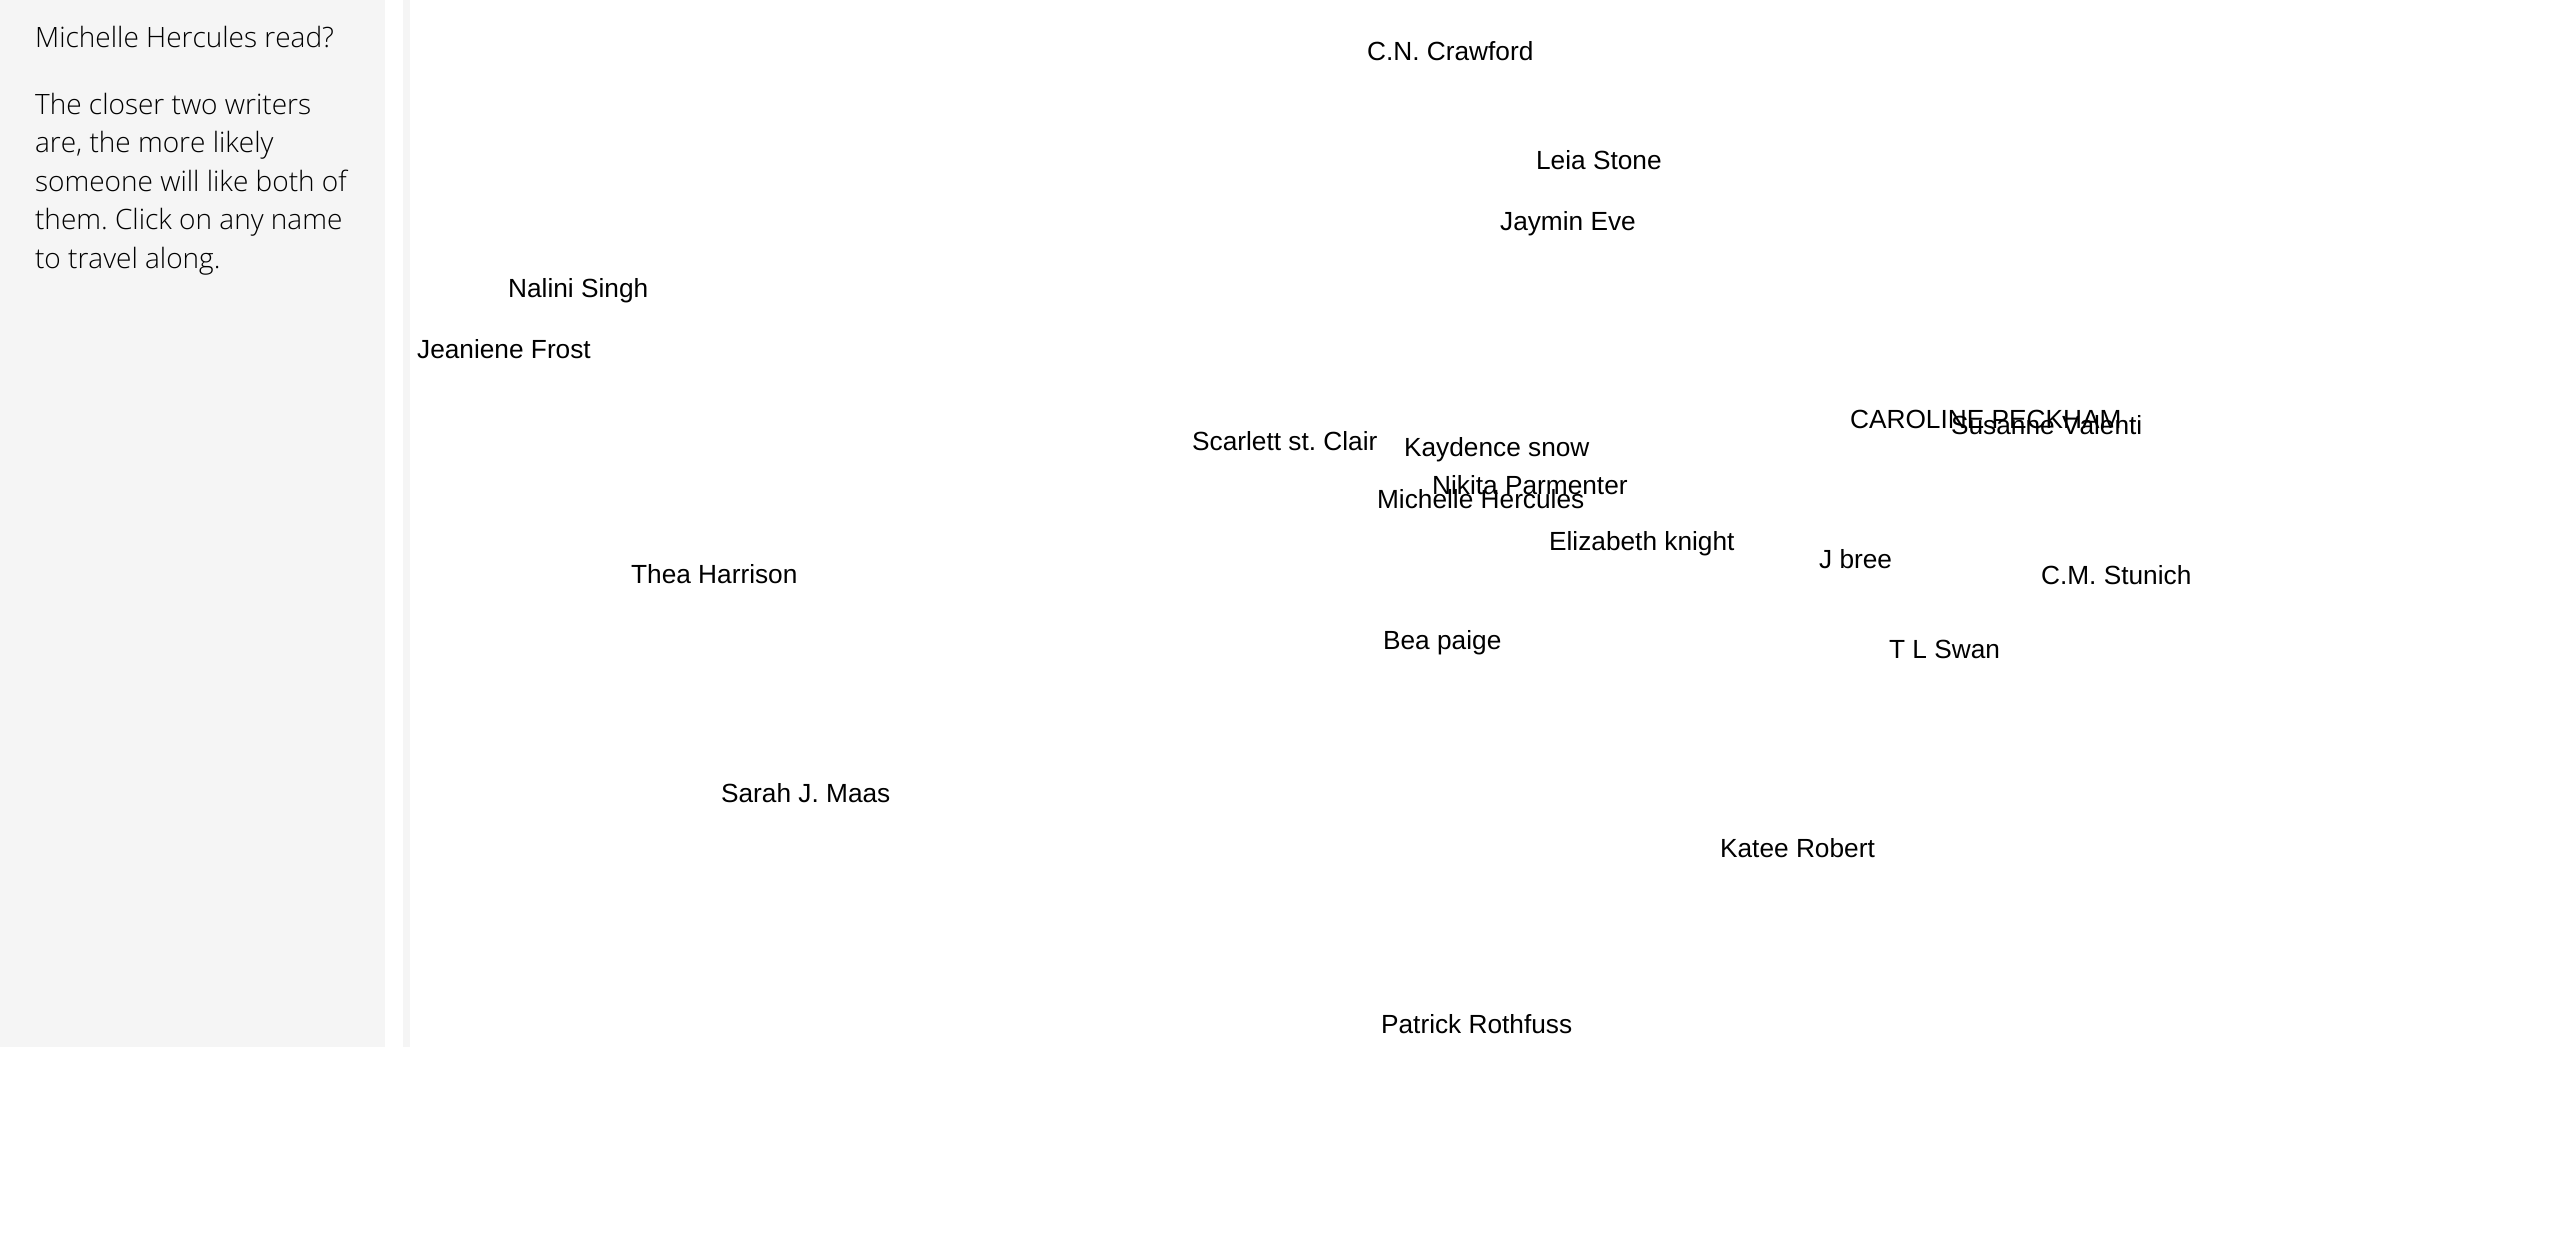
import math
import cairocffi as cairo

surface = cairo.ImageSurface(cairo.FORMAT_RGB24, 2558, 1235)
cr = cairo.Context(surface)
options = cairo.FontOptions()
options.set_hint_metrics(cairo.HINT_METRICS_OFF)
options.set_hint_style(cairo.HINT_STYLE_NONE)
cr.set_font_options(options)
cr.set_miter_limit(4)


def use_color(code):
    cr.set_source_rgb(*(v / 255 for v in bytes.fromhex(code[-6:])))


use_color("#ffffff")
cr.paint()
use_color("#f5f5f5")
cr.rectangle(0, 0, 385, 1047)
cr.fill()
cr.select_font_face("Open Sans Light")
cr.set_font_size(28)
use_color("#000000")
cr.move_to(35, 47)
cr.show_text("Michelle Hercules read?")
cr.move_to(35, 114)
cr.show_text("The closer two writers")
cr.move_to(35, 152)
cr.show_text("are, the more likely")
cr.move_to(35, 191)
cr.show_text("someone will like both of")
cr.move_to(35, 229)
cr.show_text("them. Click on any name")
cr.move_to(35, 268)
cr.show_text("to travel along.")
cr.save()
cr.rectangle(403, 0, 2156, 1047)
cr.clip()
use_color("#f5f5f5")
cr.set_fill_rule(cairo.FILL_RULE_EVEN_ODD)
cr.new_path()
cr.move_to(229, -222)
cr.line_to(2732, -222)
cr.line_to(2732, 1220)
cr.line_to(229, 1220)
cr.close_path()
cr.move_to(410, -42)
cr.line_to(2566, -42)
cr.line_to(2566, 1054)
cr.line_to(410, 1054)
cr.close_path()
cr.fill()
cr.restore()
cr.select_font_face("Liberation Sans")
cr.set_font_size(26.25)
cr.move_to(1367, 60)
cr.show_text("C.N. Crawford")
cr.move_to(1536, 169)
cr.show_text("Leia Stone")
cr.move_to(1500, 230)
cr.show_text("Jaymin Eve")
cr.move_to(508, 297)
cr.show_text("Nalini Singh")
cr.move_to(417, 358)
cr.show_text("Jeaniene Frost")
cr.move_to(1951, 434)
cr.show_text("Susanne Valenti")
cr.move_to(1850, 428)
cr.show_text("CAROLINE PECKHAM")
cr.move_to(1192, 450)
cr.show_text("Scarlett st. Clair")
cr.move_to(1404, 456)
cr.show_text("Kaydence snow")
cr.move_to(1432, 494)
cr.show_text("Nikita Parmenter")
cr.move_to(1377, 508)
cr.show_text("Michelle Hercules")
cr.move_to(1549, 550)
cr.show_text("Elizabeth knight")
cr.move_to(1819, 568)
cr.show_text("J bree")
cr.move_to(631, 583)
cr.show_text("Thea Harrison")
cr.move_to(2041, 584)
cr.show_text("C.M. Stunich")
cr.move_to(1383, 649)
cr.show_text("Bea paige")
cr.move_to(1889, 658)
cr.show_text("T L Swan")
cr.move_to(721, 802)
cr.show_text("Sarah J. Maas")
cr.move_to(1720, 857)
cr.show_text("Katee Robert")
cr.move_to(1381, 1033)
cr.show_text("Patrick Rothfuss")
surface.write_to_png("result.png")
